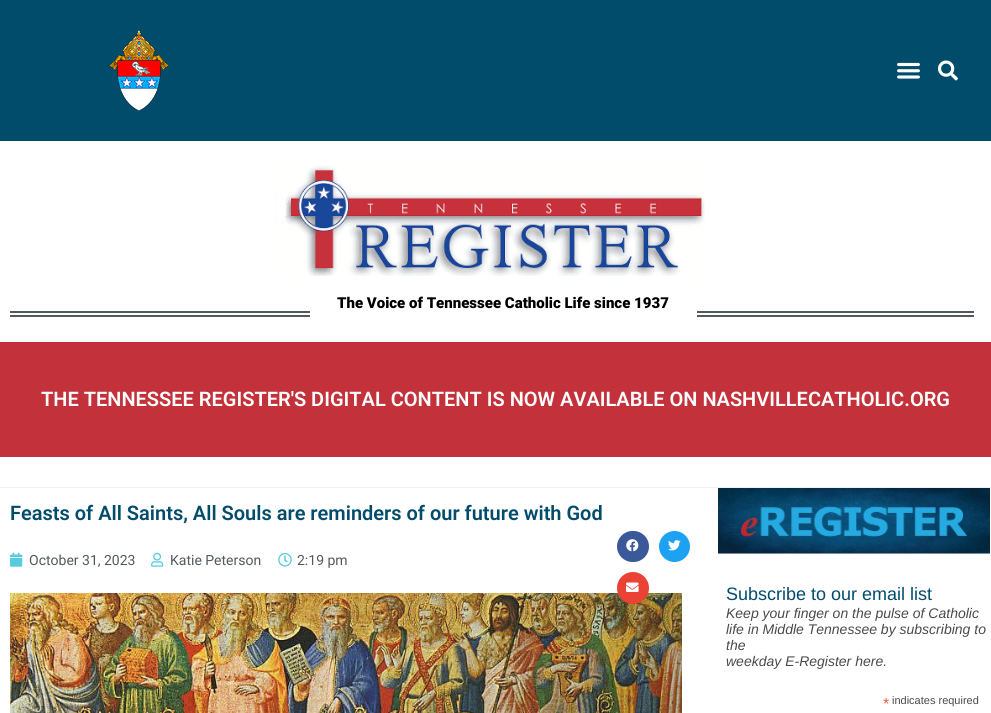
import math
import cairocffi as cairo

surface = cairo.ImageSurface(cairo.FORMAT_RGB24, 991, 713)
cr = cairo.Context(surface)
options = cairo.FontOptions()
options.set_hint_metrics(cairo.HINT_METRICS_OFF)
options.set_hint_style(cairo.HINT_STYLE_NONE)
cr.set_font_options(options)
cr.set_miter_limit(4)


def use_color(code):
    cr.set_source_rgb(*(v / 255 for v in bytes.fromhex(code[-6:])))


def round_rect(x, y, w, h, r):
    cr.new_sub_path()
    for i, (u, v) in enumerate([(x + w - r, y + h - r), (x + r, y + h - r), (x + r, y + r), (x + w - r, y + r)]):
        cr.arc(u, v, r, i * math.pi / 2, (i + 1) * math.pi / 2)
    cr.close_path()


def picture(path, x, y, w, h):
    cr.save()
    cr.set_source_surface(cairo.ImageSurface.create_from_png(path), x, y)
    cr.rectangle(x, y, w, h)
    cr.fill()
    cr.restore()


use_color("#ffffff")
cr.paint()
use_color("#f1f1f1")
cr.rectangle(0, 487, 991, 1)
cr.fill()
use_color("#014b6b")
cr.rectangle(0, 0, 991, 141)
cr.fill()
picture("img1.png", 109, 30, 60, 81)
picture("img2.png", 897, 62, 23, 17)
picture("img3.png", 938, 60, 20, 21)
picture("img4.png", 274, 165, 431, 111)
cr.select_font_face("Roboto Black")
cr.set_font_size(15)
use_color("#000000")
cr.move_to(337, 308)
cr.show_text("The Voice of Tennessee Catholic Life since 1937")
use_color("#54595f")
cr.rectangle(10, 311, 300, 2)
cr.fill()
cr.rectangle(10, 315, 300, 2)
cr.fill()
cr.rectangle(697, 311, 277, 2)
cr.fill()
cr.rectangle(697, 315, 277, 2)
cr.fill()
use_color("#c3323b")
cr.rectangle(0, 342, 991, 115)
cr.fill()
cr.select_font_face("Roboto SemiBold")
cr.set_font_size(20)
use_color("#ffffff")
cr.move_to(41, 406)
cr.show_text("THE TENNESSEE REGISTER'S DIGITAL CONTENT IS NOW AVAILABLE ON NASHVILLECATHOLIC.ORG")
use_color("#014b6b")
cr.move_to(10, 520)
cr.show_text("Feasts of All Saints, All Souls are reminders of our future with God")
picture("img5.png", 10, 552, 13, 15)
cr.select_font_face("Roboto")
cr.set_font_size(14)
use_color("#54595f")
cr.move_to(29, 565)
cr.show_text("October 31, 2023")
picture("img6.png", 151, 552, 13, 15)
cr.move_to(170, 565)
cr.show_text("Katie Peterson")
picture("img7.png", 278, 553, 14, 14)
cr.move_to(297, 565)
cr.show_text("2:19 pm")
use_color("#3b5998")
round_rect(617, 531, 32, 31, 15.5)
cr.fill()
picture("img8.png", 626, 539, 13, 13)
use_color("#1da1f2")
cr.arc(674.5, 546.5, 15.5, 0, 2 * math.pi)
cr.fill()
picture("img9.png", 668, 540, 13, 11)
picture("img11.png", 10, 593, 672, 120)
use_color("#ea4335")
cr.arc(633, 588, 16, 0, 2 * math.pi)
cr.fill()
picture("img10.png", 626, 582, 13, 10)
picture("img12.png", 718, 488, 272, 66)
cr.select_font_face("Liberation Sans")
cr.set_font_size(18)
use_color("#014b6b")
cr.move_to(726, 600)
cr.show_text("Subscribe to our email list")
cr.select_font_face("Liberation Sans", cairo.FONT_SLANT_ITALIC)
cr.set_font_size(14)
use_color("#4a4a4a")
cr.move_to(726, 618)
cr.show_text("Keep your finger on the pulse of Catholic")
cr.move_to(726, 634)
cr.show_text("life in Middle Tennessee by subscribing to")
cr.move_to(726, 650)
cr.show_text("the")
cr.move_to(726, 666)
cr.show_text("weekday E-Register here.")
cr.select_font_face("Liberation Sans")
cr.set_font_size(16)
use_color("#e85c41")
cr.move_to(883, 709)
cr.show_text("*")
cr.set_font_size(11)
use_color("#4a4a4a")
cr.move_to(892, 704)
cr.show_text("indicates required")
surface.write_to_png("result.png")
